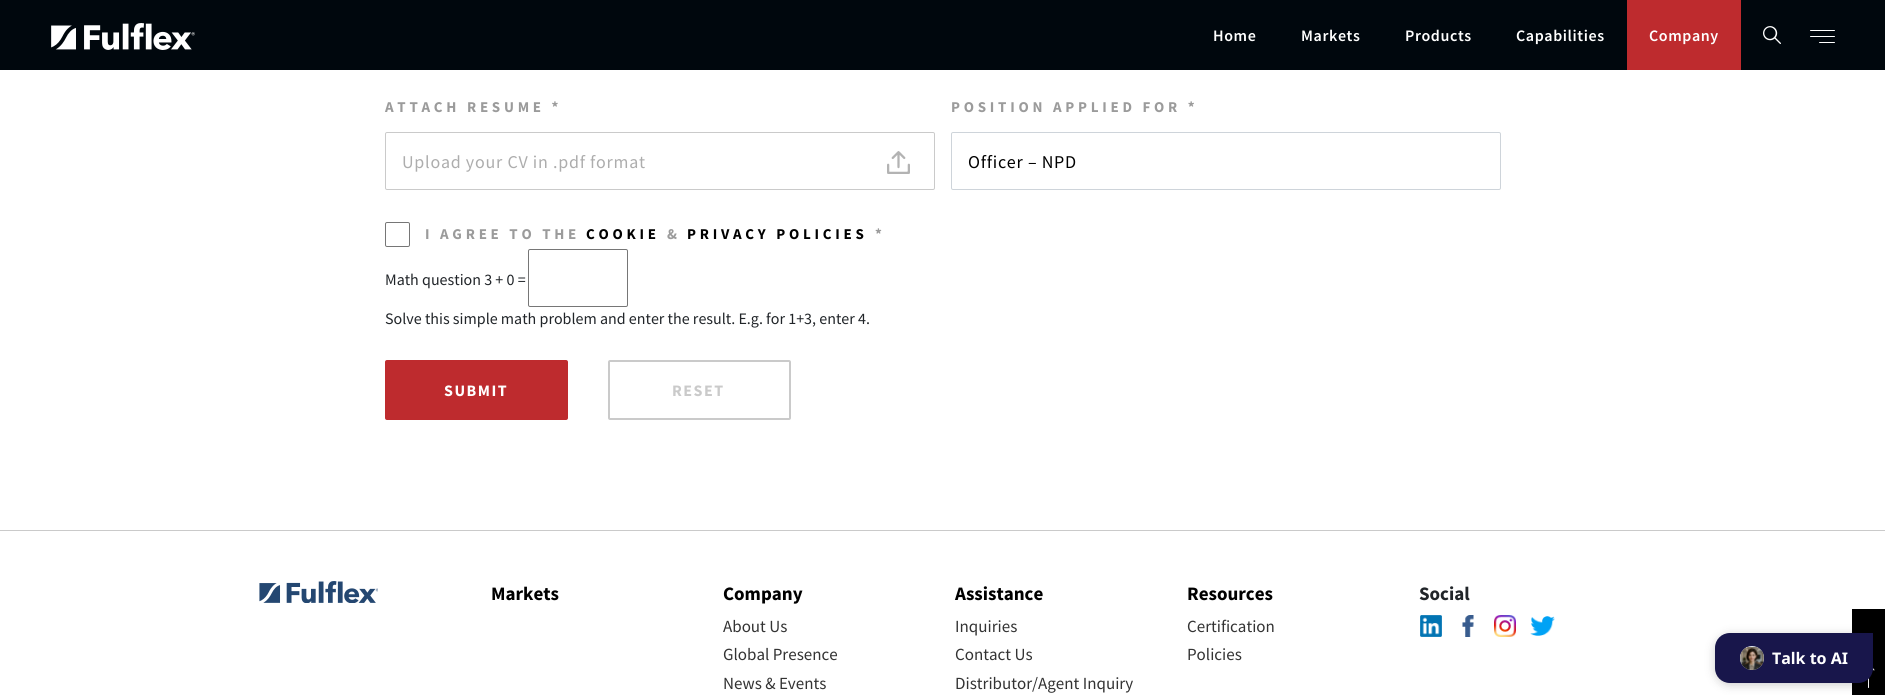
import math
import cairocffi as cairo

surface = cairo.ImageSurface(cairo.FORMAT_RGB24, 1885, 695)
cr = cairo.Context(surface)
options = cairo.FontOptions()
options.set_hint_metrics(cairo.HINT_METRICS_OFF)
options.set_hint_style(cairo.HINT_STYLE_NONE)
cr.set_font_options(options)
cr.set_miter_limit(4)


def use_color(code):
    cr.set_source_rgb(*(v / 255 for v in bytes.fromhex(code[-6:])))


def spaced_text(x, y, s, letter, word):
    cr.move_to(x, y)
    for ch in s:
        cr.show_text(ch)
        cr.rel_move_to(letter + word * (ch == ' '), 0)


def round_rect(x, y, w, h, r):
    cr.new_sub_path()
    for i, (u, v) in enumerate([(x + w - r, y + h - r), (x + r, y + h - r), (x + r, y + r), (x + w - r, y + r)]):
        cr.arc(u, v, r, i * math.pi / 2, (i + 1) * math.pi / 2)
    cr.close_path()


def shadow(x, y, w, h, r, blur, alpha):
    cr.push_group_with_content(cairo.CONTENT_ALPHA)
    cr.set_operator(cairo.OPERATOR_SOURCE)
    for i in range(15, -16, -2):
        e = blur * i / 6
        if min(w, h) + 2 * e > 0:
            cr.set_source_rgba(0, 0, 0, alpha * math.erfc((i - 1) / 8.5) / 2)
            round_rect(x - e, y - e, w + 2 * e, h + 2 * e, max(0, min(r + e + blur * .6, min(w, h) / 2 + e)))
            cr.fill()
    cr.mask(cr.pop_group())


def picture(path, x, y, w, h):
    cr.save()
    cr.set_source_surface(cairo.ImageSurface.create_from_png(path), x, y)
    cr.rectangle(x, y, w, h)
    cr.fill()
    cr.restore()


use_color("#ffffff")
cr.paint()
use_color("#00070d")
cr.rectangle(0, 0, 1885, 70)
cr.fill()
picture("img1.png", 51, 23, 144, 27)
cr.select_font_face("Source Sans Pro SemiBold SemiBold")
cr.set_font_size(16)
use_color("#ffffff")
spaced_text(1213, 41, "Home", 0.6, 0)
spaced_text(1301, 41, "Markets", 0.6, 0)
spaced_text(1405, 41, "Products", 0.6, 0)
spaced_text(1516, 41, "Capabilities", 0.6, 0)
use_color("#be2b2e")
cr.rectangle(1627, 0, 114, 70)
cr.fill()
use_color("#ffffff")
spaced_text(1649, 41, "Company", 0.6, 0)
picture("img2.png", 1763, 26, 18, 18)
round_rect(1810, 30, 25, 1, 0.5)
cr.fill()
round_rect(1810, 36, 25, 1, 0.5)
cr.fill()
round_rect(1819, 42, 16, 1, 0.5)
cr.fill()
cr.select_font_face("Source Sans Pro", cairo.FONT_SLANT_NORMAL, cairo.FONT_WEIGHT_BOLD)
cr.set_font_size(15)
use_color("#9b9b9b")
spaced_text(385, 112, "ATTACH RESUME *", 3.75, 0)
round_rect(385.5, 132.5, 549, 57, 1.5)
use_color("#cacaca")
cr.set_line_width(1)
cr.stroke()
picture("img3.png", 887, 151, 23, 23)
cr.select_font_face("Source Sans Pro")
cr.set_font_size(18)
use_color("#adadad")
spaced_text(402, 168, "Upload your CV in .pdf format", 0.75, 0)
cr.select_font_face("Source Sans Pro", cairo.FONT_SLANT_NORMAL, cairo.FONT_WEIGHT_BOLD)
cr.set_font_size(15)
use_color("#9b9b9b")
spaced_text(951, 112, "POSITION APPLIED FOR *", 3.75, 0)
round_rect(951.5, 132.5, 549, 57, 1.5)
use_color("#ced4da")
cr.stroke()
cr.select_font_face("Source Sans Pro")
cr.set_font_size(18)
use_color("#000000")
spaced_text(968, 168, "Officer – NPD", 0.75, 0)
round_rect(385.5, 222.5, 24, 24, 1.5)
use_color("#767676")
cr.stroke()
cr.select_font_face("Source Sans Pro", cairo.FONT_SLANT_NORMAL, cairo.FONT_WEIGHT_BOLD)
cr.set_font_size(15)
use_color("#9b9b9b")
spaced_text(425, 239, "I AGREE TO THE", 3.75, 0)
use_color("#000000")
spaced_text(586, 239, "COOKIE", 3.75, 0)
use_color("#9b9b9b")
spaced_text(667, 239, "&", 3.75, 0)
use_color("#000000")
spaced_text(687, 239, "PRIVACY POLICIES", 3.75, 0)
use_color("#9b9b9b")
spaced_text(875, 239, "*", 3.75, 0)
cr.select_font_face("Source Sans Pro")
cr.set_font_size(16)
use_color("#212529")
cr.move_to(385, 285)
cr.show_text("Math question 3 + 0 =")
round_rect(528.5, 249.5, 99, 57, 1.5)
use_color("#767676")
cr.stroke()
use_color("#212529")
cr.move_to(385, 324)
cr.show_text("Solve this simple math problem and enter the result. E.g. for 1+3, enter 4.")
use_color("#be2b2e")
round_rect(386, 361, 181, 58, 1)
cr.fill_preserve()
cr.set_line_width(2)
cr.stroke()
cr.select_font_face("Source Sans Pro", cairo.FONT_SLANT_NORMAL, cairo.FONT_WEIGHT_BOLD)
use_color("#ffffff")
spaced_text(444, 396, "SUBMIT", 1.5, 0)
round_rect(609, 361, 181, 58, 1)
use_color("#cacaca")
cr.stroke()
spaced_text(672, 396, "RESET", 1.5, 0)
cr.rectangle(0, 530, 1885, 1)
cr.fill()
picture("img4.png", 259, 581, 119, 22)
cr.set_font_size(19)
use_color("#000000")
cr.move_to(491, 600)
cr.show_text("Markets")
cr.move_to(723, 600)
cr.show_text("Company")
cr.select_font_face("Source Sans Pro")
cr.set_font_size(17)
use_color("#333333")
cr.move_to(723, 632)
cr.show_text("About Us")
cr.move_to(723, 660)
cr.show_text("Global Presence")
cr.move_to(723, 689)
cr.show_text("News & Events")
cr.select_font_face("Source Sans Pro", cairo.FONT_SLANT_NORMAL, cairo.FONT_WEIGHT_BOLD)
cr.set_font_size(19)
use_color("#000000")
cr.move_to(955, 600)
cr.show_text("Assistance")
cr.select_font_face("Source Sans Pro")
cr.set_font_size(17)
use_color("#333333")
cr.move_to(955, 632)
cr.show_text("Inquiries")
cr.move_to(955, 660)
cr.show_text("Contact Us")
cr.move_to(955, 689)
cr.show_text("Distributor/Agent Inquiry")
cr.select_font_face("Source Sans Pro", cairo.FONT_SLANT_NORMAL, cairo.FONT_WEIGHT_BOLD)
cr.set_font_size(19)
use_color("#000000")
cr.move_to(1187, 600)
cr.show_text("Resources")
cr.select_font_face("Source Sans Pro")
cr.set_font_size(17)
use_color("#333333")
cr.move_to(1187, 632)
cr.show_text("Certification")
cr.move_to(1187, 660)
cr.show_text("Policies")
cr.select_font_face("Source Sans Pro", cairo.FONT_SLANT_NORMAL, cairo.FONT_WEIGHT_BOLD)
cr.set_font_size(19)
use_color("#212529")
cr.move_to(1419, 600)
cr.show_text("Social")
picture("img5.png", 1420, 615, 22, 22)
picture("img6.png", 1462, 615, 12, 22)
picture("img7.png", 1494, 615, 22, 22)
picture("img8.png", 1530, 616, 25, 20)
use_color("#000000")
cr.rectangle(1852, 609, 33, 86)
cr.fill()
cr.new_path()
cr.move_to(1868.5, 664)
cr.line_to(1868.5, 687.5)
cr.move_to(1868.5, 664)
cr.line_to(1863, 670)
cr.move_to(1868.5, 664)
cr.line_to(1874, 670)
use_color("#ffffff")
cr.set_line_width(1)
cr.set_line_cap(cairo.LINE_CAP_ROUND)
cr.set_line_join(cairo.LINE_JOIN_ROUND)
cr.stroke()
use_color("#000000")
shadow(1715, 635, 158, 50, 15, 5, 0.2)
use_color("#18164b")
cr.new_path()
cr.move_to(1730, 633)
cr.line_to(1873, 633)
cr.line_to(1873, 668)
cr.curve_to(1873, 676.5, 1866.5, 683, 1858, 683)
cr.line_to(1730, 683)
cr.curve_to(1721.5, 683, 1715, 676.5, 1715, 668)
cr.line_to(1715, 648)
cr.curve_to(1715, 639.5, 1721.5, 633, 1730, 633)
cr.close_path()
cr.fill()
use_color("#e2e8f0")
cr.arc(1752, 658, 12, 0, 2 * math.pi)
cr.fill()
picture("img9.png", 1740, 647, 24, 23)
cr.select_font_face("Noto Sans", cairo.FONT_SLANT_NORMAL, cairo.FONT_WEIGHT_BOLD)
cr.set_font_size(16)
use_color("#ffffff")
cr.move_to(1772, 664)
cr.show_text("Talk to AI")
surface.write_to_png("result.png")
